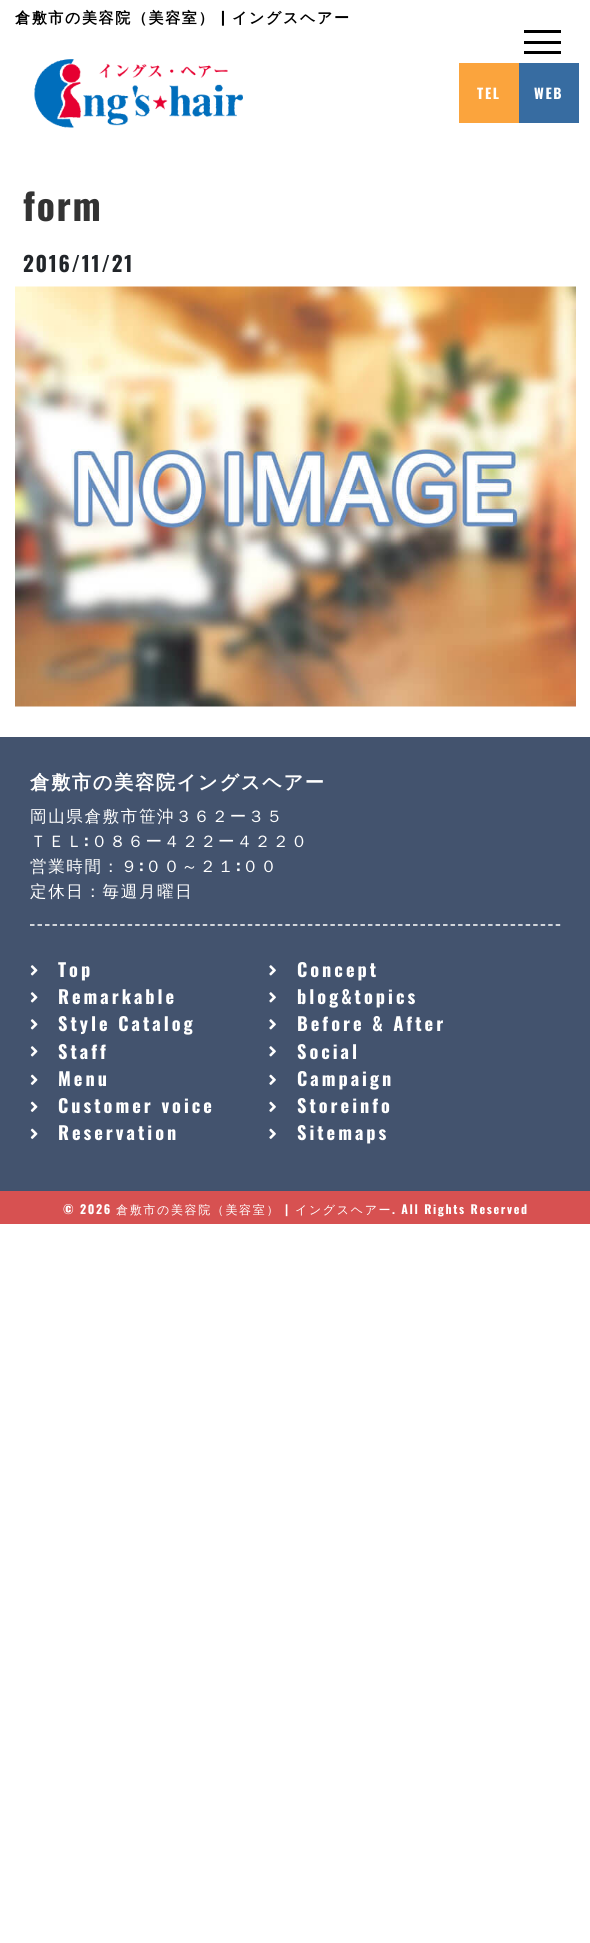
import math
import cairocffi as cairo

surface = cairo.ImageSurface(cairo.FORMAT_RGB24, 590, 1943)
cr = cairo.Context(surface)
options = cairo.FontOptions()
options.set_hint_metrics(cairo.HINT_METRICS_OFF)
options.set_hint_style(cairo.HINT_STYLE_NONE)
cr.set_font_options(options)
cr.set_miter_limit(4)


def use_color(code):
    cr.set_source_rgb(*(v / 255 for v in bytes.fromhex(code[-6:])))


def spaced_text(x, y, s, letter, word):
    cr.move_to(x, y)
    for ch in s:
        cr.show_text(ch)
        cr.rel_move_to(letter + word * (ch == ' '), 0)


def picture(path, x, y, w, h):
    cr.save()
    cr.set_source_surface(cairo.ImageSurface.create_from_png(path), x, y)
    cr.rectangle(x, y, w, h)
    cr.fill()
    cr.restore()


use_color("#ffffff")
cr.paint()
cr.select_font_face("WenQuanYi Zen Hei", cairo.FONT_SLANT_NORMAL, cairo.FONT_WEIGHT_BOLD)
cr.set_font_size(15)
use_color("#000000")
spaced_text(15, 23, "倉敷市の美容院（美容室）", 1.65, 0)
cr.select_font_face("Oswald", cairo.FONT_SLANT_NORMAL, cairo.FONT_WEIGHT_BOLD)
spaced_text(221, 23, "|", 1.65, 0)
cr.select_font_face("WenQuanYi Zen Hei", cairo.FONT_SLANT_NORMAL, cairo.FONT_WEIGHT_BOLD)
spaced_text(232, 23, "イングスヘアー", 1.65, 0)
picture("img1.png", 34, 59, 209, 69)
use_color("#fba43d")
cr.rectangle(459, 63, 60, 60)
cr.fill()
cr.select_font_face("Oswald", cairo.FONT_SLANT_NORMAL, cairo.FONT_WEIGHT_BOLD)
cr.set_font_size(14)
use_color("#ffffff")
spaced_text(477, 99, "TEL", 1.65, 0)
use_color("#376ca1")
cr.rectangle(519, 63, 60, 60)
cr.fill()
use_color("#ffffff")
spaced_text(534, 99, "WEB", 1.65, 0)
cr.set_font_size(37.5)
use_color("#333333")
spaced_text(23, 221, "form", 1.65, 0)
cr.set_font_size(21)
use_color("#212529")
spaced_text(23, 272, "2016/11/21", 1.65, 0)
picture("img2.png", 15, 286, 561, 421)
use_color("#43536e")
cr.rectangle(0, 737, 590, 454)
cr.fill()
cr.new_path()
cr.move_to(30, 925)
cr.line_to(561, 925)
use_color("#ffffff")
cr.set_line_width(1.5)
cr.set_dash([4.5, 3.01])
cr.stroke()
cr.select_font_face("WenQuanYi Zen Hei", cairo.FONT_SLANT_NORMAL, cairo.FONT_WEIGHT_BOLD)
cr.set_font_size(19.25)
spaced_text(30, 789, "倉敷市の美容院イングスヘアー", 1.65, 0)
cr.select_font_face("WenQuanYi Zen Hei Medium")
cr.set_font_size(16.5)
spaced_text(30, 822, "岡山県倉敷市笹沖３６２ー３５", 1.65, 0)
spaced_text(30, 847, "ＴＥＬ", 1.65, 0)
cr.select_font_face("Oswald", cairo.FONT_SLANT_NORMAL, cairo.FONT_WEIGHT_BOLD)
spaced_text(84, 847, ":", 1.65, 0)
cr.select_font_face("WenQuanYi Zen Hei Medium")
spaced_text(91, 847, "０８６ー４２２ー４２２０", 1.65, 0)
spaced_text(30, 872, "営業時間：９", 1.65, 0)
cr.select_font_face("Oswald", cairo.FONT_SLANT_NORMAL, cairo.FONT_WEIGHT_BOLD)
spaced_text(139, 872, ":", 1.65, 0)
cr.select_font_face("WenQuanYi Zen Hei Medium")
spaced_text(145, 872, "００～２１", 1.65, 0)
cr.select_font_face("Oswald", cairo.FONT_SLANT_NORMAL, cairo.FONT_WEIGHT_BOLD)
spaced_text(236, 872, ":", 1.65, 0)
cr.select_font_face("WenQuanYi Zen Hei Medium")
spaced_text(242, 872, "００", 1.65, 0)
spaced_text(30, 897, "定休日：毎週月曜日", 1.65, 0)
picture("img3.png", 30, 965, 8, 11)
cr.select_font_face("Oswald", cairo.FONT_SLANT_NORMAL, cairo.FONT_WEIGHT_BOLD)
cr.set_font_size(18.25)
spaced_text(58, 977, "Top", 3, 0)
picture("img4.png", 269, 965, 7, 11)
spaced_text(297, 977, "Concept", 3, 0)
picture("img3.png", 30, 992, 8, 11)
spaced_text(58, 1004, "Remarkable", 3, 0)
picture("img4.png", 269, 992, 7, 11)
spaced_text(297, 1004, "blog&topics", 3, 0)
picture("img3.png", 30, 1019, 8, 11)
spaced_text(58, 1031, "Style Catalog", 3, 0)
picture("img4.png", 269, 1019, 7, 11)
spaced_text(297, 1031, "Before & After", 3, 0)
picture("img3.png", 30, 1046, 8, 11)
spaced_text(58, 1059, "Staff", 3, 0)
picture("img4.png", 269, 1046, 7, 11)
spaced_text(297, 1059, "Social", 3, 0)
picture("img5.png", 30, 1074, 8, 11)
spaced_text(58, 1086, "Menu", 3, 0)
picture("img6.png", 269, 1074, 7, 11)
spaced_text(297, 1086, "Campaign", 3, 0)
picture("img5.png", 30, 1101, 8, 11)
spaced_text(58, 1113, "Customer voice", 3, 0)
picture("img6.png", 269, 1101, 7, 11)
spaced_text(297, 1113, "Storeinfo", 3, 0)
picture("img5.png", 30, 1128, 8, 11)
spaced_text(58, 1140, "Reservation", 3, 0)
picture("img6.png", 269, 1128, 7, 11)
spaced_text(297, 1140, "Sitemaps", 3, 0)
use_color("#d75151")
cr.rectangle(0, 1191, 590, 33)
cr.fill()
cr.set_font_size(12)
use_color("#ffffff")
spaced_text(63, 1214, "© 2026", 1.65, 0)
cr.select_font_face("WenQuanYi Zen Hei Medium")
spaced_text(116, 1214, "倉敷市の美容院（美容室）", 1.65, 0)
cr.select_font_face("Oswald", cairo.FONT_SLANT_NORMAL, cairo.FONT_WEIGHT_BOLD)
spaced_text(285, 1214, "|", 1.65, 0)
cr.select_font_face("WenQuanYi Zen Hei Medium")
spaced_text(295, 1214, "イングスヘアー", 1.65, 0)
cr.select_font_face("Oswald", cairo.FONT_SLANT_NORMAL, cairo.FONT_WEIGHT_BOLD)
spaced_text(392, 1214, ". All Rights Reserved", 1.65, 0)
use_color("#000000")
cr.rectangle(524, 41, 37, 3)
cr.fill()
cr.rectangle(524, 30, 37, 3)
cr.fill()
cr.rectangle(524, 51, 37, 3)
cr.fill()
surface.write_to_png("result.png")
